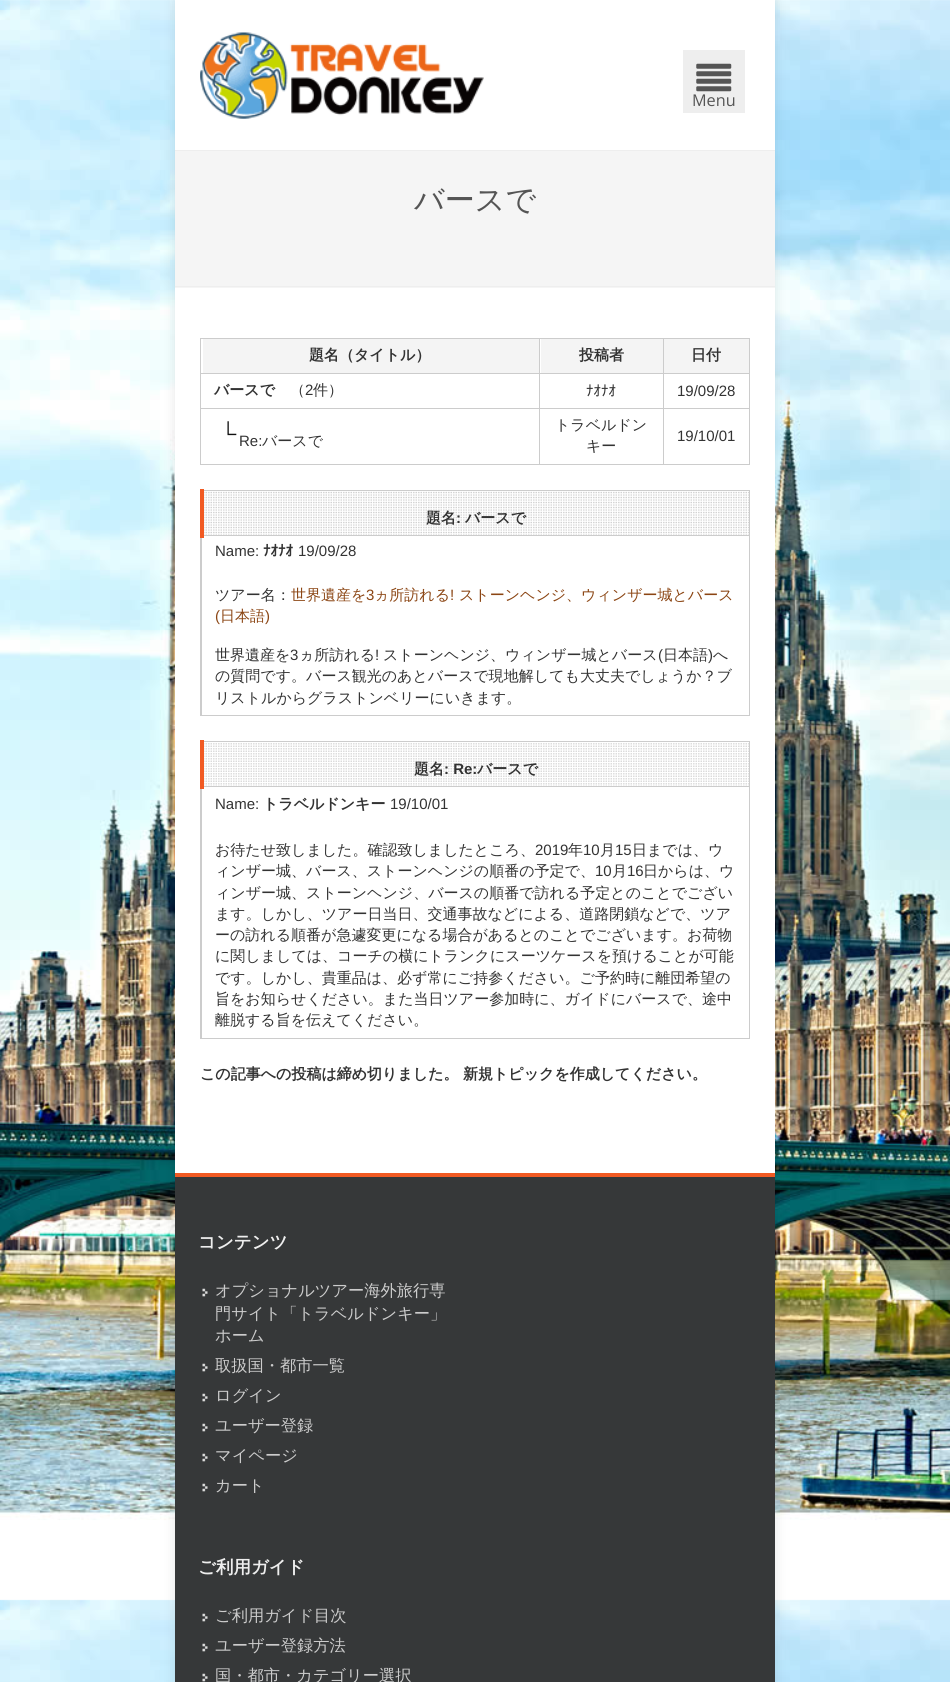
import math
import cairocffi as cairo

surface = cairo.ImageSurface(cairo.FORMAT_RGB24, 950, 1682)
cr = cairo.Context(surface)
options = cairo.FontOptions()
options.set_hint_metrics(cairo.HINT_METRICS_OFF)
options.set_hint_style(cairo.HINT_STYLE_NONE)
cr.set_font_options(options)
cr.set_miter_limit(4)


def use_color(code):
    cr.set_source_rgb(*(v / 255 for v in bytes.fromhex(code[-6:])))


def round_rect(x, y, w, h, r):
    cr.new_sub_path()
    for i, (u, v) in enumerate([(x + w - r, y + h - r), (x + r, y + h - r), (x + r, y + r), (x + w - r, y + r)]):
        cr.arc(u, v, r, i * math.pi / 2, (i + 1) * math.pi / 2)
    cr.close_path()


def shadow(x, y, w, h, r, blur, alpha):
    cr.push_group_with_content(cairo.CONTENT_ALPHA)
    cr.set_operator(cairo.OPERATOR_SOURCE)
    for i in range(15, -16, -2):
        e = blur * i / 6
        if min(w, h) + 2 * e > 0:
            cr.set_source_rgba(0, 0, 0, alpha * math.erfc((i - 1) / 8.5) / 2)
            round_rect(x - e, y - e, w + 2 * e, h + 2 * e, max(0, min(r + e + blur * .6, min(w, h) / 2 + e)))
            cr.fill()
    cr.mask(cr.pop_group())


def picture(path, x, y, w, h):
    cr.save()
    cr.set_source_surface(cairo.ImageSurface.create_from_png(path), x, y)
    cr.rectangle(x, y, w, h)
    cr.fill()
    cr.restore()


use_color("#ffffff")
cr.paint()
picture("img1.png", 0, 0, 950, 1682)
use_color("#000000")
shadow(175, 0, 600, 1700, 0, 6, 0.1)
use_color("#ffffff")
cr.rectangle(175, 0, 600, 1173)
cr.fill()
picture("img2.png", 200, 32, 284, 87)
use_color("#eeeeee")
cr.rectangle(683, 50, 62, 63)
cr.fill()
picture("img3.png", 696, 63, 36, 29)
cr.select_font_face("Open Sans")
cr.set_font_size(16.25)
use_color("#555555")
cr.move_to(692, 106)
cr.show_text("Menu")
use_color("#f5f5f5")
cr.rectangle(175, 151, 600, 137)
cr.fill()
use_color("#eeeeee")
cr.rectangle(175, 150, 600, 1)
cr.fill()
cr.rectangle(175, 286, 600, 1)
cr.fill()
cr.select_font_face("WenQuanYi Zen Hei Medium")
cr.set_font_size(30)
use_color("#555555")
cr.move_to(414, 210)
cr.show_text("バースで")
use_color("#cccccc")
cr.rectangle(200, 338, 550, 1)
cr.fill()
cr.rectangle(749, 338, 1, 127)
cr.fill()
cr.rectangle(200, 464, 550, 1)
cr.fill()
cr.rectangle(200, 338, 1, 127)
cr.fill()
use_color("#f4f4f4")
cr.rectangle(203, 339, 336, 34)
cr.fill()
use_color("#cccccc")
cr.rectangle(663, 408, 1, 57)
cr.fill()
cr.rectangle(663, 408, 87, 1)
cr.fill()
cr.rectangle(663, 373, 1, 36)
cr.fill()
cr.rectangle(663, 373, 87, 1)
cr.fill()
cr.rectangle(663, 338, 1, 36)
cr.fill()
cr.rectangle(539, 408, 1, 57)
cr.fill()
cr.rectangle(539, 408, 125, 1)
cr.fill()
cr.rectangle(539, 373, 1, 36)
cr.fill()
cr.rectangle(539, 373, 125, 1)
cr.fill()
cr.rectangle(539, 338, 1, 36)
cr.fill()
cr.rectangle(200, 373, 340, 1)
cr.fill()
cr.select_font_face("WenQuanYi Zen Hei", cairo.FONT_SLANT_NORMAL, cairo.FONT_WEIGHT_BOLD)
cr.set_font_size(15)
use_color("#333333")
cr.move_to(309, 360)
cr.show_text("題名（タイトル）")
use_color("#f4f4f4")
cr.rectangle(541, 339, 122, 34)
cr.fill()
use_color("#333333")
cr.move_to(579, 360)
cr.show_text("投稿者")
use_color("#f4f4f4")
cr.rectangle(664, 339, 85, 34)
cr.fill()
use_color("#333333")
cr.move_to(691, 360)
cr.show_text("日付")
use_color("#cccccc")
cr.rectangle(200, 408, 340, 1)
cr.fill()
use_color("#333333")
cr.move_to(214, 395)
cr.show_text("バースで")
cr.select_font_face("WenQuanYi Zen Hei Medium")
cr.move_to(290, 395)
cr.show_text("（")
cr.select_font_face("Liberation Sans")
cr.move_to(305, 395)
cr.show_text("2")
cr.select_font_face("WenQuanYi Zen Hei Medium")
cr.move_to(313, 395)
cr.show_text("件）")
cr.select_font_face("IPAPGothic")
cr.move_to(586, 396)
cr.show_text("ﾅｵﾅｵ")
cr.select_font_face("Liberation Sans")
cr.move_to(677, 396)
cr.show_text("19/09/28")
picture("img4.png", 227, 421, 10, 15)
cr.move_to(239, 446)
cr.show_text("Re:")
cr.select_font_face("WenQuanYi Zen Hei Medium")
cr.move_to(262, 446)
cr.show_text("バースで")
cr.move_to(555, 430)
cr.show_text("トラベルドン")
cr.move_to(586, 451)
cr.show_text("キー")
cr.select_font_face("Liberation Sans")
cr.move_to(677, 441)
cr.show_text("19/10/01")
use_color("#cccccc")
cr.rectangle(200, 490, 550, 1)
cr.fill()
cr.rectangle(749, 490, 1, 226)
cr.fill()
cr.rectangle(200, 715, 550, 1)
cr.fill()
cr.rectangle(200, 538, 1, 178)
cr.fill()
picture("img5.png", 204, 491, 545, 44)
cr.rectangle(201, 535, 1, 181)
cr.fill()
cr.rectangle(201, 535, 549, 1)
cr.fill()
use_color("#f15a23")
cr.rectangle(200, 489, 4, 49)
cr.fill()
cr.select_font_face("WenQuanYi Zen Hei", cairo.FONT_SLANT_NORMAL, cairo.FONT_WEIGHT_BOLD)
use_color("#333333")
cr.move_to(426, 523)
cr.show_text("題名")
cr.select_font_face("Liberation Sans", cairo.FONT_SLANT_NORMAL, cairo.FONT_WEIGHT_BOLD)
cr.move_to(456, 523)
cr.show_text(":")
cr.select_font_face("WenQuanYi Zen Hei", cairo.FONT_SLANT_NORMAL, cairo.FONT_WEIGHT_BOLD)
cr.move_to(465, 523)
cr.show_text("バースで")
cr.select_font_face("Liberation Sans")
cr.move_to(215, 556)
cr.show_text("Name:")
cr.select_font_face("IPAPGothic", cairo.FONT_SLANT_NORMAL, cairo.FONT_WEIGHT_BOLD)
cr.move_to(263, 556)
cr.show_text("ﾅｵﾅｵ")
cr.select_font_face("Liberation Sans")
cr.move_to(298, 556)
cr.show_text("19/09/28")
cr.select_font_face("WenQuanYi Zen Hei Medium")
cr.move_to(215, 600)
cr.show_text("ツアー名：")
use_color("#8b4513")
cr.move_to(291, 600)
cr.show_text("世界遺産を")
cr.select_font_face("Liberation Sans")
cr.move_to(366, 600)
cr.show_text("3")
cr.select_font_face("WenQuanYi Zen Hei Medium")
cr.move_to(374, 600)
cr.show_text("ヵ所訪れる")
cr.select_font_face("Liberation Sans")
cr.move_to(450, 600)
cr.show_text("!")
cr.select_font_face("WenQuanYi Zen Hei Medium")
cr.move_to(459, 600)
cr.show_text("ストーンヘンジ、ウィンザー城とバース")
cr.select_font_face("Liberation Sans")
cr.move_to(215, 621)
cr.show_text("(")
cr.select_font_face("WenQuanYi Zen Hei Medium")
cr.move_to(220, 621)
cr.show_text("日本語")
cr.select_font_face("Liberation Sans")
cr.move_to(265, 621)
cr.show_text(")")
cr.select_font_face("WenQuanYi Zen Hei Medium")
use_color("#333333")
cr.move_to(215, 660)
cr.show_text("世界遺産を")
cr.select_font_face("Liberation Sans")
cr.move_to(290, 660)
cr.show_text("3")
cr.select_font_face("WenQuanYi Zen Hei Medium")
cr.move_to(299, 660)
cr.show_text("ヵ所訪れる")
cr.select_font_face("Liberation Sans")
cr.move_to(375, 660)
cr.show_text("!")
cr.select_font_face("WenQuanYi Zen Hei Medium")
cr.move_to(383, 660)
cr.show_text("ストーンヘンジ、ウィンザー城とバース")
cr.select_font_face("Liberation Sans")
cr.move_to(658, 660)
cr.show_text("(")
cr.select_font_face("WenQuanYi Zen Hei Medium")
cr.move_to(663, 660)
cr.show_text("日本語")
cr.select_font_face("Liberation Sans")
cr.move_to(708, 660)
cr.show_text(")")
cr.select_font_face("WenQuanYi Zen Hei Medium")
cr.move_to(713, 660)
cr.show_text("へ")
cr.move_to(215, 681)
cr.show_text("の質問です。バース観光のあとバースで現地解しても大丈夫でしょうか？ブ")
cr.move_to(215, 703)
cr.show_text("リストルからグラストンベリーにいきます。")
use_color("#cccccc")
cr.rectangle(200, 741, 550, 1)
cr.fill()
cr.rectangle(749, 741, 1, 298)
cr.fill()
cr.rectangle(200, 1038, 550, 1)
cr.fill()
cr.rectangle(200, 789, 1, 250)
cr.fill()
picture("img6.png", 204, 743, 545, 43)
cr.rectangle(201, 786, 1, 253)
cr.fill()
cr.rectangle(201, 786, 549, 1)
cr.fill()
use_color("#f15a23")
cr.rectangle(200, 740, 4, 49)
cr.fill()
cr.select_font_face("WenQuanYi Zen Hei", cairo.FONT_SLANT_NORMAL, cairo.FONT_WEIGHT_BOLD)
use_color("#333333")
cr.move_to(414, 774)
cr.show_text("題名")
cr.select_font_face("Liberation Sans", cairo.FONT_SLANT_NORMAL, cairo.FONT_WEIGHT_BOLD)
cr.move_to(444, 774)
cr.show_text(": Re:")
cr.select_font_face("WenQuanYi Zen Hei", cairo.FONT_SLANT_NORMAL, cairo.FONT_WEIGHT_BOLD)
cr.move_to(477, 774)
cr.show_text("バースで")
cr.select_font_face("Liberation Sans")
cr.move_to(215, 809)
cr.show_text("Name:")
cr.select_font_face("WenQuanYi Zen Hei", cairo.FONT_SLANT_NORMAL, cairo.FONT_WEIGHT_BOLD)
cr.move_to(263, 809)
cr.show_text("トラベルドンキー")
cr.select_font_face("Liberation Sans")
cr.move_to(390, 809)
cr.show_text("19/10/01")
cr.select_font_face("WenQuanYi Zen Hei Medium")
cr.move_to(215, 855)
cr.show_text("お待たせ致しました。確認致しましたところ、")
cr.select_font_face("Liberation Sans")
cr.move_to(535, 855)
cr.show_text("2019")
cr.select_font_face("WenQuanYi Zen Hei Medium")
cr.move_to(568, 855)
cr.show_text("年")
cr.select_font_face("Liberation Sans")
cr.move_to(583, 855)
cr.show_text("10")
cr.select_font_face("WenQuanYi Zen Hei Medium")
cr.move_to(600, 855)
cr.show_text("月")
cr.select_font_face("Liberation Sans")
cr.move_to(615, 855)
cr.show_text("15")
cr.select_font_face("WenQuanYi Zen Hei Medium")
cr.move_to(632, 855)
cr.show_text("日までは、ウ")
cr.move_to(215, 876)
cr.show_text("ィンザー城、バース、ストーンヘンジの順番の予定で、")
cr.select_font_face("Liberation Sans")
cr.move_to(595, 876)
cr.show_text("10")
cr.select_font_face("WenQuanYi Zen Hei Medium")
cr.move_to(612, 876)
cr.show_text("月")
cr.select_font_face("Liberation Sans")
cr.move_to(627, 876)
cr.show_text("16")
cr.select_font_face("WenQuanYi Zen Hei Medium")
cr.move_to(643, 876)
cr.show_text("日からは、ウ")
cr.move_to(215, 898)
cr.show_text("ィンザー城、ストーンヘンジ、バースの順番で訪れる予定とのことでござい")
cr.move_to(215, 919)
cr.show_text("ます。しかし、ツアー日当日、交通事故などによる、道路閉鎖などで、ツア")
cr.move_to(215, 940)
cr.show_text("ーの訪れる順番が急遽変更になる場合があるとのことでございます。お荷物")
cr.move_to(215, 961)
cr.show_text("に関しましては、コーチの横にトランクにスーツケースを預けることが可能")
cr.move_to(215, 983)
cr.show_text("です。しかし、貴重品は、必ず常にご持参ください。ご予約時に離団希望の")
cr.move_to(215, 1004)
cr.show_text("旨をお知らせください。また当日ツアー参加時に、ガイドにバースで、途中")
cr.move_to(215, 1025)
cr.show_text("離脱する旨を伝えてください。")
cr.select_font_face("WenQuanYi Zen Hei", cairo.FONT_SLANT_NORMAL, cairo.FONT_WEIGHT_BOLD)
cr.move_to(200, 1079)
cr.show_text("この記事への投稿は締め切りました。 新規トピックを作成してください。")
use_color("#363839")
cr.rectangle(175, 1177, 600, 505)
cr.fill()
use_color("#f15a23")
cr.rectangle(175, 1173, 600, 4)
cr.fill()
cr.set_font_size(17.5)
use_color("#eeeeee")
cr.move_to(198, 1248)
cr.show_text("コンテンツ")
picture("img7.png", 202, 1288, 6, 9)
cr.select_font_face("WenQuanYi Zen Hei Medium")
cr.set_font_size(16.25)
use_color("#cccccc")
cr.move_to(215, 1296)
cr.show_text("オプショナルツアー海外旅行専")
cr.move_to(215, 1319)
cr.show_text("門サイト「トラベルドンキー」")
cr.move_to(215, 1341)
cr.show_text("ホーム")
picture("img7.png", 202, 1363, 6, 9)
cr.move_to(215, 1371)
cr.show_text("取扱国・都市一覧")
picture("img7.png", 202, 1393, 6, 9)
cr.move_to(215, 1401)
cr.show_text("ログイン")
picture("img7.png", 202, 1423, 6, 9)
cr.move_to(215, 1431)
cr.show_text("ユーザー登録")
picture("img7.png", 202, 1453, 6, 9)
cr.move_to(215, 1461)
cr.show_text("マイページ")
picture("img7.png", 202, 1483, 6, 9)
cr.move_to(215, 1491)
cr.show_text("カート")
cr.select_font_face("WenQuanYi Zen Hei", cairo.FONT_SLANT_NORMAL, cairo.FONT_WEIGHT_BOLD)
cr.set_font_size(17.5)
use_color("#eeeeee")
cr.move_to(198, 1573)
cr.show_text("ご利用ガイド")
picture("img7.png", 202, 1613, 6, 9)
cr.select_font_face("WenQuanYi Zen Hei Medium")
cr.set_font_size(16.25)
use_color("#cccccc")
cr.move_to(215, 1621)
cr.show_text("ご利用ガイド目次")
picture("img7.png", 202, 1643, 6, 9)
cr.move_to(215, 1651)
cr.show_text("ユーザー登録方法")
picture("img7.png", 202, 1673, 6, 9)
cr.move_to(215, 1681)
cr.show_text("国・都市・カテゴリー選択")
surface.write_to_png("result.png")
